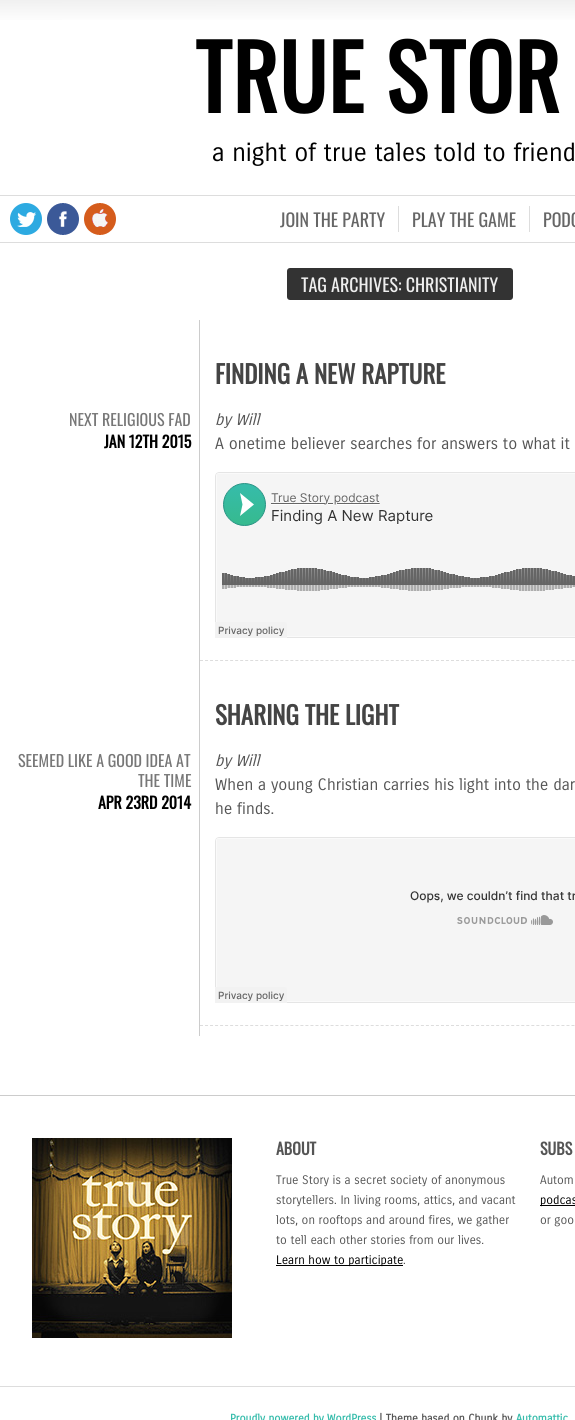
import math
import cairocffi as cairo

surface = cairo.ImageSurface(cairo.FORMAT_RGB24, 575, 1420)
cr = cairo.Context(surface)
options = cairo.FontOptions()
options.set_hint_metrics(cairo.HINT_METRICS_OFF)
options.set_hint_style(cairo.HINT_STYLE_NONE)
cr.set_font_options(options)
cr.set_miter_limit(4)


def use_color(code):
    cr.set_source_rgb(*(v / 255 for v in bytes.fromhex(code[-6:])))


def spaced_text(x, y, s, letter, word):
    cr.move_to(x, y)
    for ch in s:
        cr.show_text(ch)
        cr.rel_move_to(letter + word * (ch == ' '), 0)


def round_rect(x, y, w, h, r):
    cr.new_sub_path()
    for i, (u, v) in enumerate([(x + w - r, y + h - r), (x + r, y + h - r), (x + r, y + r), (x + w - r, y + r)]):
        cr.arc(u, v, r, i * math.pi / 2, (i + 1) * math.pi / 2)
    cr.close_path()


def picture(path, x, y, w, h):
    cr.save()
    cr.set_source_surface(cairo.ImageSurface.create_from_png(path), x, y)
    cr.rectangle(x, y, w, h)
    cr.fill()
    cr.restore()


use_color("#ffffff")
cr.paint()
gradient = cairo.LinearGradient(287, -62, 288, 1358)
gradient.add_color_stop_rgba(0, 0.784, 0.784, 0.784, 1)
gradient.add_color_stop_rgba(0.06, 1, 1, 1, 1)
cr.set_source(gradient)
cr.rectangle(0, 0, 575, 20)
cr.fill()
cr.select_font_face("Oswald", cairo.FONT_SLANT_NORMAL, cairo.FONT_WEIGHT_BOLD)
cr.set_font_size(88)
use_color("#000000")
spaced_text(195, 113, "TRUE STOR", 1, 0)
cr.select_font_face("Carrois Gothic")
cr.set_font_size(25)
cr.move_to(212, 161)
cr.show_text("a night of true tales told to friend")
use_color("#dddddd")
cr.rectangle(0, 195, 575, 1)
cr.fill()
cr.rectangle(0, 242, 575, 1)
cr.fill()
picture("img1.png", 10, 203, 32, 32)
picture("img2.png", 47, 203, 32, 32)
picture("img3.png", 84, 203, 32, 32)
cr.rectangle(398, 206, 1, 26)
cr.fill()
cr.select_font_face("Oswald")
cr.set_font_size(18)
use_color("#666666")
cr.move_to(280, 227)
cr.show_text("JOIN THE PARTY")
use_color("#dddddd")
cr.rectangle(529, 206, 1, 26)
cr.fill()
use_color("#666666")
cr.move_to(412, 227)
cr.show_text("PLAY THE GAME")
cr.move_to(543, 227)
cr.show_text("PODC")
use_color("#333333")
round_rect(287, 268, 226, 32, 3)
cr.fill()
use_color("#eeeeee")
cr.move_to(301, 292)
cr.show_text("TAG ARCHIVES: CHRISTIANITY")
use_color("#cccccc")
cr.rectangle(199, 320, 1, 716)
cr.fill()
cr.set_font_size(16)
use_color("#777777")
cr.move_to(69, 426)
cr.show_text("NEXT RELIGIOUS FAD")
cr.select_font_face("Oswald", cairo.FONT_SLANT_NORMAL, cairo.FONT_WEIGHT_BOLD)
use_color("#000000")
cr.move_to(104, 448)
cr.show_text("JAN 12TH 2015")
cr.new_path()
cr.move_to(200, 660.5)
cr.line_to(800, 660.5)
use_color("#dddddd")
cr.set_line_width(1)
cr.set_dash([3, 2.02])
cr.stroke()
cr.set_font_size(25)
use_color("#444444")
cr.move_to(215, 384)
cr.show_text("FINDING A NEW RAPTURE")
cr.select_font_face("Carrois Gothic", cairo.FONT_SLANT_ITALIC)
cr.set_font_size(16)
use_color("#555555")
cr.move_to(215, 425)
cr.show_text("by Will")
cr.select_font_face("Carrois Gothic")
cr.move_to(215, 449)
cr.show_text("A onetime believer searches for answers to what it")
picture("img4.png", 215, 472, 360, 166)
cr.select_font_face("Oswald")
use_color("#777777")
cr.move_to(18, 767)
cr.show_text("SEEMED LIKE A GOOD IDEA AT")
cr.move_to(138, 787)
cr.show_text("THE TIME")
cr.select_font_face("Oswald", cairo.FONT_SLANT_NORMAL, cairo.FONT_WEIGHT_BOLD)
use_color("#000000")
cr.move_to(98, 809)
cr.show_text("APR 23RD 2014")
cr.new_path()
cr.move_to(200, 1025.5)
cr.line_to(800, 1025.5)
use_color("#dddddd")
cr.stroke()
cr.set_font_size(25)
use_color("#444444")
cr.move_to(215, 725)
cr.show_text("SHARING THE LIGHT")
cr.select_font_face("Carrois Gothic", cairo.FONT_SLANT_ITALIC)
cr.set_font_size(16)
use_color("#555555")
cr.move_to(215, 766)
cr.show_text("by Will")
cr.select_font_face("Carrois Gothic")
cr.move_to(215, 790)
cr.show_text("When a young Christian carries his light into the dar")
cr.move_to(215, 814)
cr.show_text("he finds.")
picture("img5.png", 215, 837, 360, 166)
use_color("#cccccc")
cr.rectangle(0, 1095, 575, 1)
cr.fill()
picture("img6.png", 32, 1138, 200, 200)
cr.select_font_face("Oswald", cairo.FONT_SLANT_NORMAL, cairo.FONT_WEIGHT_BOLD)
use_color("#555555")
cr.move_to(276, 1155)
cr.show_text("ABOUT")
cr.select_font_face("Carrois Gothic")
cr.set_font_size(12)
cr.move_to(276, 1184)
cr.show_text("True Story is a secret society of anonymous")
cr.move_to(276, 1204)
cr.show_text("storytellers. In living rooms, attics, and vacant")
cr.move_to(276, 1224)
cr.show_text("lots, on rooftops and around fires, we gather")
cr.move_to(276, 1244)
cr.show_text("to tell each other stories from our lives.")
use_color("#000000")
cr.rectangle(276, 1265, 127, 1)
cr.fill()
cr.move_to(276, 1264)
cr.show_text("Learn how to participate")
use_color("#555555")
cr.move_to(403, 1264)
cr.show_text(".")
cr.select_font_face("Oswald", cairo.FONT_SLANT_NORMAL, cairo.FONT_WEIGHT_BOLD)
cr.set_font_size(16)
cr.move_to(540, 1155)
cr.show_text("SUBS")
cr.select_font_face("Carrois Gothic")
cr.set_font_size(12)
cr.move_to(540, 1184)
cr.show_text("Autom")
use_color("#000000")
cr.rectangle(540, 1205, 35, 1)
cr.fill()
cr.move_to(540, 1204)
cr.show_text("podcas")
use_color("#555555")
cr.move_to(540, 1224)
cr.show_text("or goo")
use_color("#dddddd")
cr.rectangle(0, 1386, 575, 1)
cr.fill()
cr.select_font_face("Carrois Gothic", cairo.FONT_SLANT_NORMAL, cairo.FONT_WEIGHT_BOLD)
cr.set_font_size(11)
use_color("#36bcab")
cr.move_to(230, 1422)
cr.show_text("Proudly powered by WordPress")
use_color("#555555")
cr.move_to(379, 1422)
cr.show_text("| Theme based on Chunk by")
use_color("#36bcab")
cr.move_to(516, 1422)
cr.show_text("Automattic")
surface.write_to_png("result.png")
